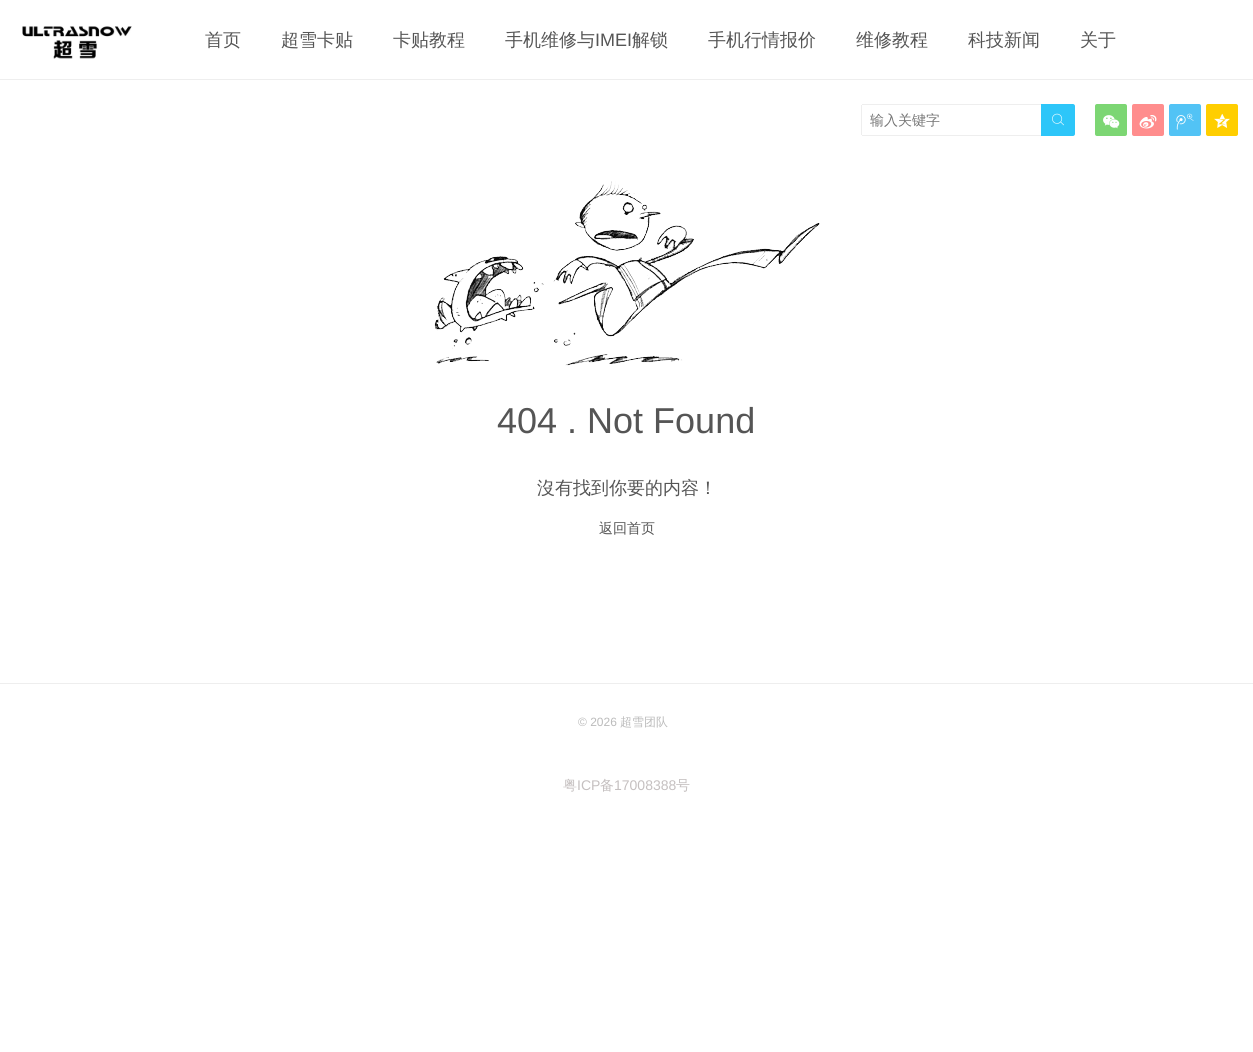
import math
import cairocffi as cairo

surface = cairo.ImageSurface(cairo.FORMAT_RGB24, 1253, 1052)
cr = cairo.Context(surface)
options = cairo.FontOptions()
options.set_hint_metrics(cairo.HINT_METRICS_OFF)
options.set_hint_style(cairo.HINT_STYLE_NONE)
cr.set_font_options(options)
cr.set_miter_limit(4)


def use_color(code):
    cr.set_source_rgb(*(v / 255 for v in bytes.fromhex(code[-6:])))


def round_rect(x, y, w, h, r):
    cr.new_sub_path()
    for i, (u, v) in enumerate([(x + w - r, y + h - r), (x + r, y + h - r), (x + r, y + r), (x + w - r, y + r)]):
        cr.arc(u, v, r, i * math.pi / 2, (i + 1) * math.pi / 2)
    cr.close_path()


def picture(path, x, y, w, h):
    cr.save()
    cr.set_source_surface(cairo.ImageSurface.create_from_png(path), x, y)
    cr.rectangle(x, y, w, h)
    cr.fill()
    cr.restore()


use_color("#ffffff")
cr.paint()
use_color("#eeeeee")
cr.rectangle(0, 79, 1253, 1)
cr.fill()
picture("img1.png", 22, 26, 110, 33)
cr.select_font_face("WenQuanYi Zen Hei Medium")
cr.set_font_size(18)
use_color("#555555")
cr.move_to(205, 46)
cr.show_text("首页")
cr.move_to(281, 46)
cr.show_text("超雪卡贴")
cr.move_to(393, 46)
cr.show_text("卡贴教程")
cr.move_to(505, 46)
cr.show_text("手机维修与")
cr.select_font_face("Liberation Sans")
cr.move_to(595, 46)
cr.show_text("IMEI")
cr.select_font_face("WenQuanYi Zen Hei Medium")
cr.move_to(632, 46)
cr.show_text("解锁")
cr.move_to(708, 46)
cr.show_text("手机行情报价")
cr.move_to(856, 46)
cr.show_text("维修教程")
cr.move_to(968, 46)
cr.show_text("科技新闻")
cr.move_to(1080, 46)
cr.show_text("关于")
use_color("#eeeeee")
cr.rectangle(862, 104, 179, 1)
cr.fill()
cr.rectangle(862, 135, 179, 1)
cr.fill()
cr.rectangle(861, 105, 1, 30)
cr.fill()
cr.set_font_size(14)
use_color("#757575")
cr.move_to(870, 125)
cr.show_text("输入关键字")
use_color("#2dc6f9")
cr.new_path()
cr.move_to(1041, 104)
cr.line_to(1073, 104)
cr.curve_to(1074, 104, 1075, 105, 1075, 106)
cr.line_to(1075, 134)
cr.curve_to(1075, 135, 1074, 136, 1073, 136)
cr.line_to(1041, 136)
cr.close_path()
cr.fill()
picture("img2.png", 1052, 113, 12, 13)
use_color("#7cd673")
round_rect(1095, 104, 32, 32, 2)
cr.fill()
picture("img3.png", 1103, 115, 17, 14)
use_color("#ff8d8d")
round_rect(1132, 104, 32, 32, 2)
cr.fill()
picture("img4.png", 1139, 115, 18, 14)
use_color("#52c3f5")
round_rect(1169, 104, 32, 32, 2)
cr.fill()
picture("img5.png", 1176, 113, 18, 17)
use_color("#ffce00")
round_rect(1206, 104, 32, 32, 2)
cr.fill()
picture("img6.png", 1214, 113, 16, 15)
picture("img7.png", 434, 181, 386, 185)
cr.select_font_face("Liberation Sans")
cr.set_font_size(36)
use_color("#555555")
cr.move_to(497, 433)
cr.show_text("404 . Not Found")
cr.select_font_face("WenQuanYi Zen Hei Medium")
cr.set_font_size(18)
cr.move_to(537, 494)
cr.show_text("沒有找到你要的内容！")
cr.set_font_size(14)
cr.move_to(599, 533)
cr.show_text("返回首页")
use_color("#eeeeee")
cr.rectangle(0, 683, 1253, 1)
cr.fill()
cr.select_font_face("Liberation Sans")
cr.set_font_size(12)
use_color("#bbbbbb")
cr.move_to(578, 726)
cr.show_text("© 2026")
cr.select_font_face("WenQuanYi Zen Hei Medium")
cr.move_to(620, 726)
cr.show_text("超雪团队")
cr.set_font_size(14)
use_color("#c5c0c0")
cr.move_to(563, 790)
cr.show_text("粤")
cr.select_font_face("Liberation Sans")
cr.move_to(577, 790)
cr.show_text("ICP")
cr.select_font_face("WenQuanYi Zen Hei Medium")
cr.move_to(600, 790)
cr.show_text("备")
cr.select_font_face("Liberation Sans")
cr.move_to(614, 790)
cr.show_text("17008388")
cr.select_font_face("WenQuanYi Zen Hei Medium")
cr.move_to(676, 790)
cr.show_text("号")
surface.write_to_png("result.png")
